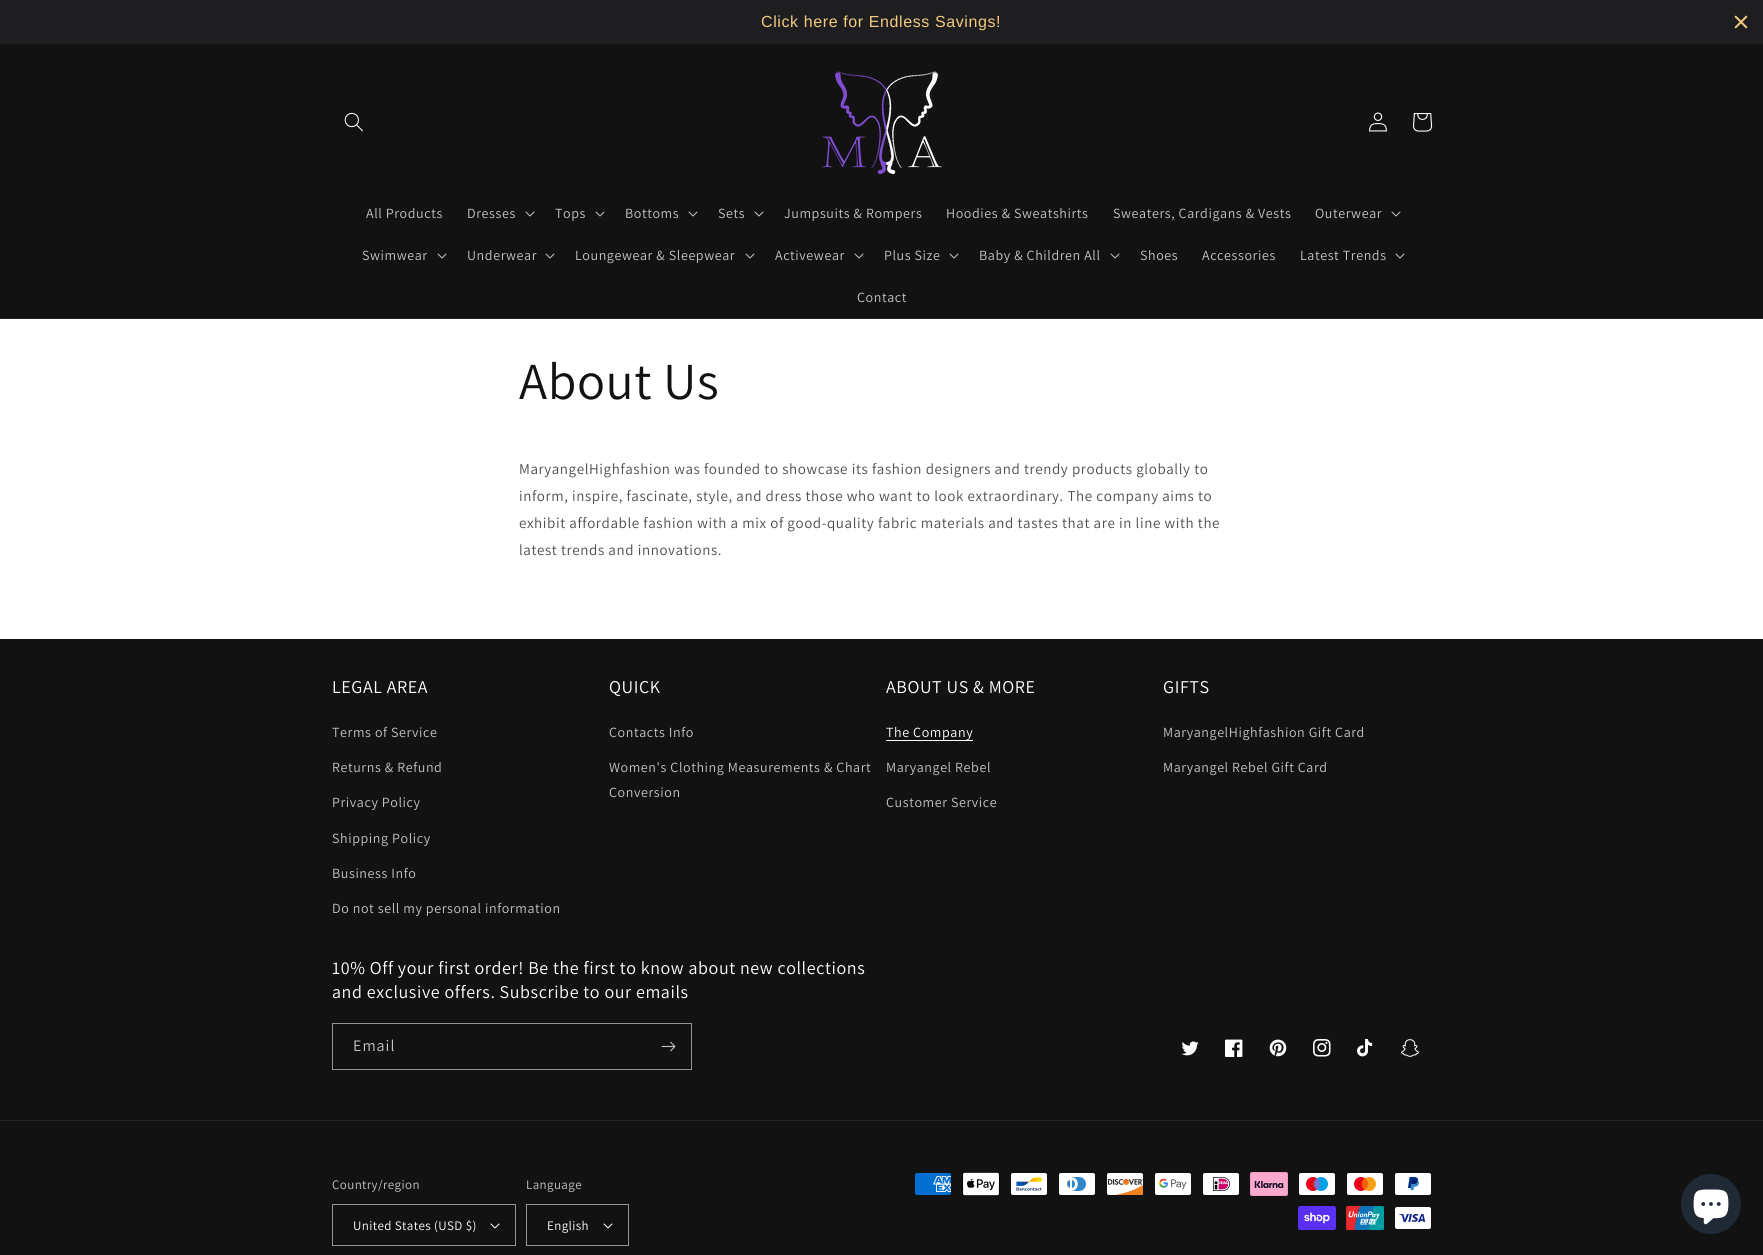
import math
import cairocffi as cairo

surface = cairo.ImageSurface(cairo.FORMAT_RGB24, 1763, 1255)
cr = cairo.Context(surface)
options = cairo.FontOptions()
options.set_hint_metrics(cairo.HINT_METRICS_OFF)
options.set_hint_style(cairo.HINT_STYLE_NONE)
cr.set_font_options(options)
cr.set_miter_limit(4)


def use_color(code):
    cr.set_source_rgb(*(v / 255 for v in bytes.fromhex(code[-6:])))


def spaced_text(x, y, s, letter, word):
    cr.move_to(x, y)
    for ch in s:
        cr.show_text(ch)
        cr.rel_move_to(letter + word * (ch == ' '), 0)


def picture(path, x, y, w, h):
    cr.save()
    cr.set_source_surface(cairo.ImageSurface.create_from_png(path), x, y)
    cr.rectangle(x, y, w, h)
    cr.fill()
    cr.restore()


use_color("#ffffff")
cr.paint()
use_color("#1e1e20")
cr.rectangle(0, 0, 1763, 44)
cr.fill()
cr.select_font_face("Liberation Sans")
cr.set_font_size(16)
use_color("#f2ca80")
spaced_text(761, 27, "Click here for Endless Savings!", 0.6, 0)
picture("img1.png", 1734, 15, 14, 14)
use_color("#121212")
cr.rectangle(0, 44, 1763, 274)
cr.fill()
use_color("#252525")
cr.rectangle(0, 318, 1763, 1)
cr.fill()
picture("img2.png", 344, 112, 19, 20)
picture("img3.png", 822, 71, 120, 103)
picture("img4.png", 1369, 112, 18, 20)
picture("img5.png", 1413, 113, 20, 19)
cr.select_font_face("Assistant")
cr.set_font_size(14)
use_color("#c4c4c4")
spaced_text(366, 218, "All Products", 0.6, 0)
spaced_text(467, 218, "Dresses", 0.6, 0)
picture("img6.png", 525, 211, 10, 6)
spaced_text(555, 218, "Tops", 0.6, 0)
picture("img6.png", 595, 211, 10, 6)
spaced_text(625, 218, "Bottoms", 0.6, 0)
picture("img6.png", 688, 211, 10, 6)
spaced_text(718, 218, "Sets", 0.6, 0)
picture("img6.png", 754, 211, 10, 6)
spaced_text(784, 218, "Jumpsuits & Rompers", 0.6, 0)
spaced_text(946, 218, "Hoodies & Sweatshirts", 0.6, 0)
spaced_text(1113, 218, "Sweaters, Cardigans & Vests", 0.6, 0)
spaced_text(1315, 218, "Outerwear", 0.6, 0)
picture("img6.png", 1391, 211, 10, 6)
spaced_text(362, 260, "Swimwear", 0.6, 0)
picture("img6.png", 437, 253, 10, 6)
spaced_text(467, 260, "Underwear", 0.6, 0)
picture("img6.png", 545, 253, 10, 6)
spaced_text(575, 260, "Loungewear & Sleepwear", 0.6, 0)
picture("img6.png", 745, 253, 10, 6)
spaced_text(775, 260, "Activewear", 0.6, 0)
picture("img6.png", 854, 253, 10, 6)
spaced_text(884, 260, "Plus Size", 0.6, 0)
picture("img6.png", 949, 253, 10, 6)
spaced_text(979, 260, "Baby & Children All", 0.6, 0)
picture("img6.png", 1110, 253, 10, 6)
spaced_text(1140, 260, "Shoes", 0.6, 0)
spaced_text(1202, 260, "Accessories", 0.6, 0)
spaced_text(1300, 260, "Latest Trends", 0.6, 0)
picture("img6.png", 1395, 253, 10, 6)
spaced_text(857, 302, "Contact", 0.6, 0)
cr.set_font_size(52)
use_color("#121212")
spaced_text(519, 399, "About Us", 0.6, 0)
cr.set_font_size(15)
use_color("#4d4d4d")
spaced_text(519, 474, "MaryangelHighfashion was founded to showcase its fashion designers and trendy products globally to", 0.6, 0)
spaced_text(519, 501, "inform, inspire, fascinate, style, and dress those who want to look extraordinary. The company aims to", 0.6, 0)
spaced_text(519, 528, "exhibit affordable fashion with a mix of good-quality fabric materials and tastes that are in line with the", 0.6, 0)
spaced_text(519, 555, "latest trends and innovations.", 0.6, 0)
use_color("#121212")
cr.rectangle(0, 639, 1763, 616)
cr.fill()
cr.set_font_size(18)
use_color("#ffffff")
spaced_text(332, 693, "LEGAL AREA", 0.6, 0)
cr.set_font_size(14)
use_color("#c4c4c4")
spaced_text(332, 737, "Terms of Service", 0.6, 0)
spaced_text(332, 772, "Returns & Refund", 0.6, 0)
spaced_text(332, 807, "Privacy Policy", 0.6, 0)
spaced_text(332, 843, "Shipping Policy", 0.6, 0)
spaced_text(332, 878, "Business Info", 0.6, 0)
spaced_text(332, 913, "Do not sell my personal information", 0.6, 0)
cr.set_font_size(18)
use_color("#ffffff")
spaced_text(609, 693, "QUICK", 0.6, 0)
cr.set_font_size(14)
use_color("#c4c4c4")
spaced_text(609, 737, "Contacts Info", 0.6, 0)
spaced_text(609, 772, "Women's Clothing Measurements & Chart", 0.6, 0)
spaced_text(609, 797, "Conversion", 0.6, 0)
cr.set_font_size(18)
use_color("#ffffff")
spaced_text(886, 693, "ABOUT US & MORE", 0.6, 0)
cr.set_font_size(14)
spaced_text(886, 737, "The Company", 0.6, 0)
cr.rectangle(886, 740, 87, 1)
cr.fill()
use_color("#c4c4c4")
spaced_text(886, 772, "Maryangel Rebel", 0.6, 0)
spaced_text(886, 807, "Customer Service", 0.6, 0)
cr.set_font_size(18)
use_color("#ffffff")
spaced_text(1163, 693, "GIFTS", 0.6, 0)
cr.set_font_size(14)
use_color("#c4c4c4")
spaced_text(1163, 737, "MaryangelHighfashion Gift Card", 0.6, 0)
spaced_text(1163, 772, "Maryangel Rebel Gift Card", 0.6, 0)
cr.set_font_size(18)
use_color("#ffffff")
spaced_text(332, 974, "10% Off your first order! Be the first to know about new collections", 0.6, 0)
spaced_text(332, 998, "and exclusive offers. Subscribe to our emails", 0.6, 0)
cr.rectangle(332.5, 1023.5, 359, 46)
use_color("#949494")
cr.set_line_width(1)
cr.stroke()
cr.set_font_size(16)
use_color("#c4c4c4")
spaced_text(353, 1051, "Email", 1, 0)
picture("img7.png", 661, 1041, 15, 11)
picture("img8.png", 1181, 1041, 18, 15)
picture("img9.png", 1225, 1039, 18, 18)
picture("img10.png", 1269, 1039, 18, 18)
picture("img11.png", 1313, 1039, 18, 18)
picture("img12.png", 1357, 1039, 16, 18)
picture("img13.png", 1401, 1039, 18, 18)
use_color("#252525")
cr.rectangle(0, 1120, 1763, 1)
cr.fill()
cr.set_font_size(13)
use_color("#c4c4c4")
spaced_text(332, 1189, "Country/region", 0.4, 0)
picture("img14.png", 490, 1223, 10, 6)
cr.rectangle(332.5, 1204.5, 183, 41)
use_color("#949494")
cr.stroke()
use_color("#ffffff")
spaced_text(353, 1230, "United States (USD $)", 0.4, 0)
use_color("#c4c4c4")
spaced_text(526, 1189, "Language", 0.4, 0)
picture("img14.png", 603, 1223, 10, 6)
cr.rectangle(526.5, 1204.5, 102, 41)
use_color("#949494")
cr.stroke()
use_color("#ffffff")
spaced_text(547, 1230, "English", 0.4, 0)
picture("img15.png", 915, 1173, 36, 22)
picture("img16.png", 962, 1172, 38, 24)
picture("img17.png", 1011, 1173, 36, 22)
picture("img18.png", 1059, 1173, 36, 22)
picture("img19.png", 1107, 1173, 36, 22)
picture("img20.png", 1155, 1173, 36, 22)
picture("img21.png", 1203, 1173, 36, 22)
picture("img22.png", 1250, 1172, 38, 24)
picture("img23.png", 1299, 1173, 36, 22)
picture("img24.png", 1347, 1173, 36, 22)
picture("img25.png", 1395, 1173, 36, 22)
picture("img26.png", 1298, 1206, 38, 24)
picture("img27.png", 1346, 1206, 38, 24)
picture("img28.png", 1395, 1207, 36, 22)
use_color("#202a36")
cr.arc(1711, 1204, 30, 0, 2 * math.pi)
cr.fill()
picture("img29.png", 1693, 1189, 36, 36)
surface.write_to_png("result.png")
